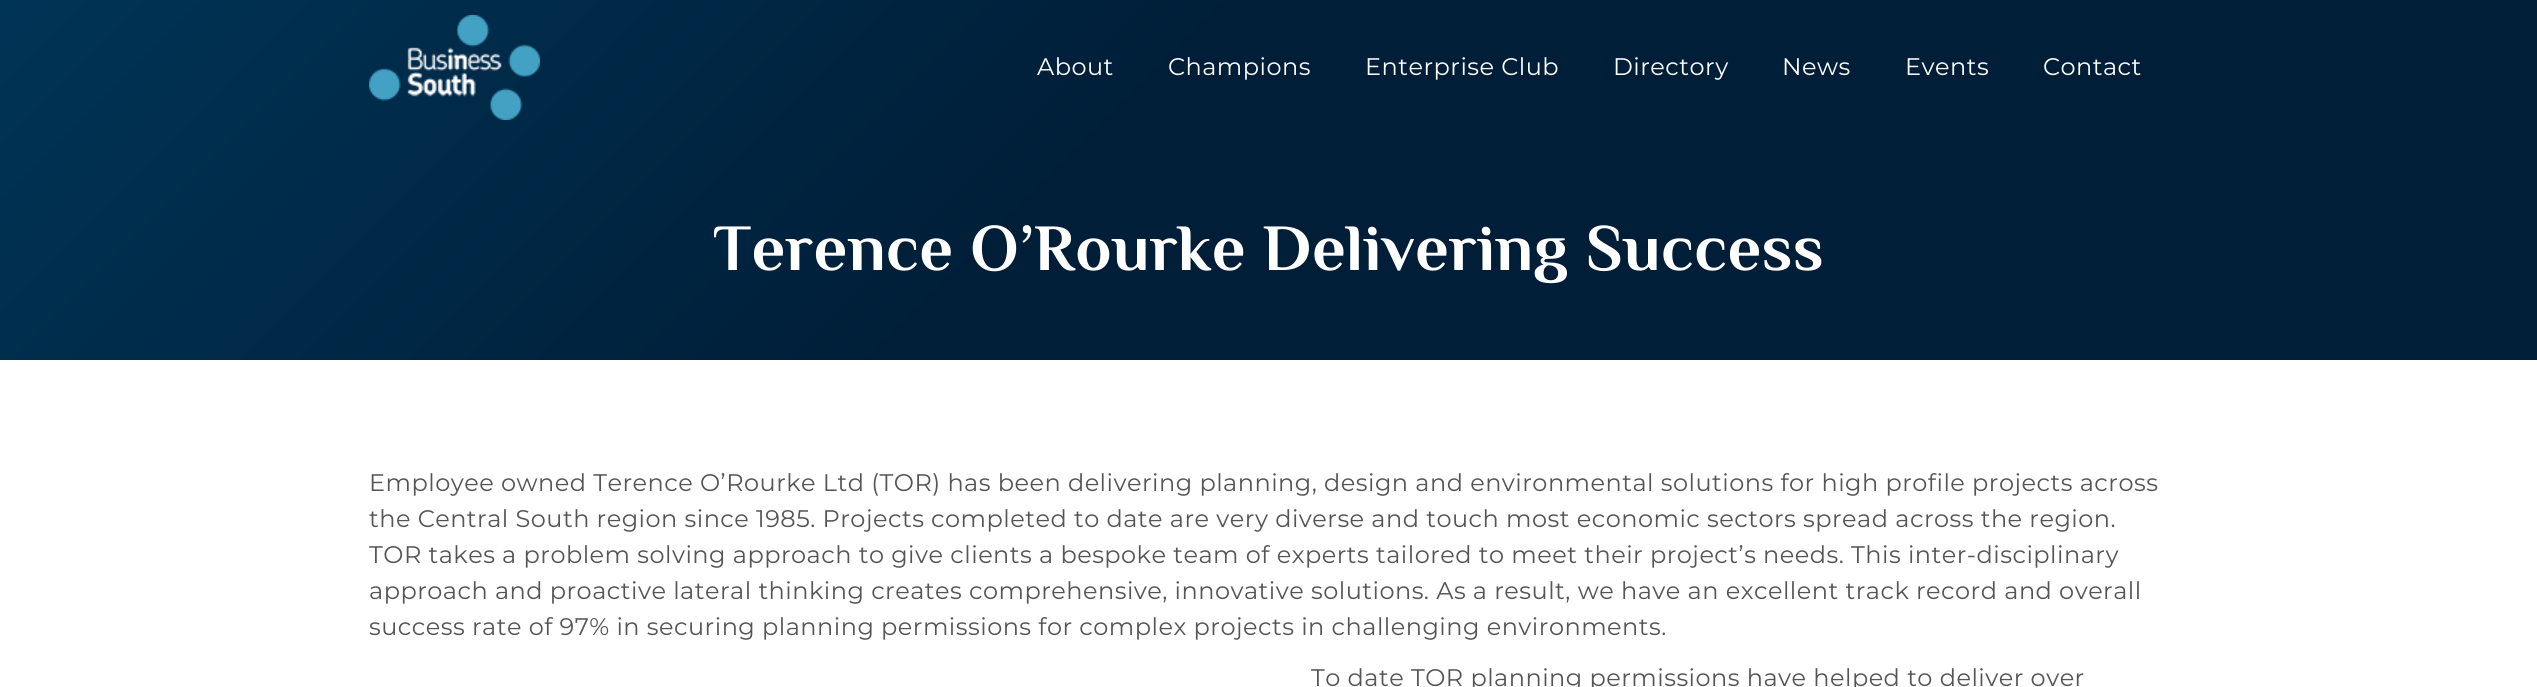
import math
import cairocffi as cairo

surface = cairo.ImageSurface(cairo.FORMAT_RGB24, 2537, 687)
cr = cairo.Context(surface)
options = cairo.FontOptions()
options.set_hint_metrics(cairo.HINT_METRICS_OFF)
options.set_hint_style(cairo.HINT_STYLE_NONE)
cr.set_font_options(options)
cr.set_miter_limit(4)


def use_color(code):
    cr.set_source_rgb(*(v / 255 for v in bytes.fromhex(code[-6:])))


def spaced_text(x, y, s, letter, word):
    cr.move_to(x, y)
    for ch in s:
        cr.show_text(ch)
        cr.rel_move_to(letter + word * (ch == ' '), 0)


def picture(path, x, y, w, h):
    cr.save()
    cr.set_source_surface(cairo.ImageSurface.create_from_png(path), x, y)
    cr.rectangle(x, y, w, h)
    cr.fill()
    cr.restore()


use_color("#ffffff")
cr.paint()
gradient = cairo.LinearGradient(544, -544, 1994, 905)
gradient.add_color_stop_rgba(0, 0, 0.204, 0.337, 1)
gradient.add_color_stop_rgba(0.43, 0, 0.118, 0.22, 1)
cr.set_source(gradient)
cr.rectangle(0, 0, 2537, 360)
cr.fill()
picture("img1.png", 369, 15, 171, 105)
cr.select_font_face("Montserrat")
cr.set_font_size(24)
use_color("#ffffff")
spaced_text(1037, 75, "About", 0.48, 0)
spaced_text(1168, 75, "Champions", 0.48, 0)
spaced_text(1365, 75, "Enterprise Club", 0.48, 0)
spaced_text(1613, 75, "Directory", 0.48, 0)
spaced_text(1782, 75, "News", 0.48, 0)
spaced_text(1905, 75, "Events", 0.48, 0)
spaced_text(2043, 75, "Contact", 0.48, 0)
cr.select_font_face("Philosopher", cairo.FONT_SLANT_NORMAL, cairo.FONT_WEIGHT_BOLD)
cr.set_font_size(66)
spaced_text(713, 270, "Terence O’Rourke Delivering Success", 0.48, 0)
cr.select_font_face("Montserrat")
cr.set_font_size(24)
use_color("#555555")
spaced_text(369, 491, "Employee owned Terence O’Rourke Ltd (TOR) has been delivering planning, design and environmental solutions for high profile projects across", 0.48, 0)
spaced_text(369, 527, "the Central South region since 1985. Projects completed to date are very diverse and touch most economic sectors spread across the region.", 0.48, 0)
spaced_text(369, 563, "TOR takes a problem solving approach to give clients a bespoke team of experts tailored to meet their project’s needs. This inter-disciplinary", 0.48, 0)
spaced_text(369, 599, "approach and proactive lateral thinking creates comprehensive, innovative solutions. As a result, we have an excellent track record and overall", 0.48, 0)
spaced_text(369, 635, "success rate of 97% in securing planning permissions for complex projects in challenging environments.", 0.48, 0)
spaced_text(1311, 686, "To date TOR planning permissions have helped to deliver over", 0.48, 0)
surface.write_to_png("result.png")
